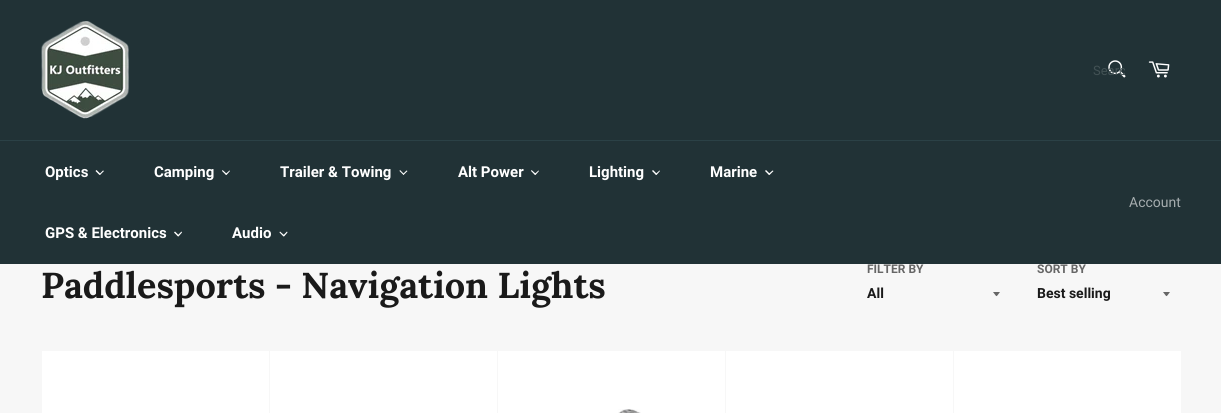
import math
import cairocffi as cairo

surface = cairo.ImageSurface(cairo.FORMAT_RGB24, 1221, 413)
cr = cairo.Context(surface)
options = cairo.FontOptions()
options.set_hint_metrics(cairo.HINT_METRICS_OFF)
options.set_hint_style(cairo.HINT_STYLE_NONE)
cr.set_font_options(options)
cr.set_miter_limit(4)


def use_color(code):
    cr.set_source_rgb(*(v / 255 for v in bytes.fromhex(code[-6:])))


def picture(path, x, y, w, h):
    cr.save()
    cr.set_source_surface(cairo.ImageSurface.create_from_png(path), x, y)
    cr.rectangle(x, y, w, h)
    cr.fill()
    cr.restore()


use_color("#f7f7f7")
cr.paint()
use_color("#213236")
cr.rectangle(0, 0, 1221, 140)
cr.fill()
picture("img1.png", 41, 21, 88, 98)
picture("img2.png", 1108, 60, 18, 18)
cr.save()
cr.rectangle(1093, 63, 32, 15)
cr.clip()
cr.select_font_face("Roboto")
cr.set_font_size(13)
use_color("#425154")
cr.move_to(1093, 75)
cr.show_text("Searc")
cr.restore()
picture("img3.png", 1148, 61, 22, 17)
cr.rectangle(0, 141, 1221, 123)
cr.fill()
use_color("#2b4146")
cr.rectangle(0, 140, 1221, 1)
cr.fill()
cr.select_font_face("Roboto", cairo.FONT_SLANT_NORMAL, cairo.FONT_WEIGHT_BOLD)
cr.set_font_size(15)
use_color("#ffffff")
cr.move_to(45, 177)
cr.show_text("Optics")
cr.new_path()
cr.move_to(103, 170.5)
cr.line_to(104, 171)
cr.line_to(100, 175)
cr.line_to(99.5, 174)
cr.close_path()
cr.fill()
cr.new_path()
cr.move_to(96.5, 170)
cr.line_to(100.5, 174)
cr.line_to(99.5, 175)
cr.line_to(95.5, 171)
cr.close_path()
cr.fill()
cr.move_to(154, 177)
cr.show_text("Camping")
cr.new_path()
cr.move_to(229.5, 170.5)
cr.line_to(230, 171)
cr.line_to(226.5, 175)
cr.line_to(225.5, 174)
cr.close_path()
cr.fill()
cr.new_path()
cr.move_to(222.5, 170)
cr.line_to(227, 174)
cr.line_to(226, 175)
cr.line_to(222, 171)
cr.close_path()
cr.fill()
cr.move_to(280, 177)
cr.show_text("Trailer & Towing")
cr.new_path()
cr.move_to(406.5, 170.5)
cr.line_to(407.5, 171)
cr.line_to(403.5, 175)
cr.line_to(403, 174)
cr.close_path()
cr.fill()
cr.new_path()
cr.move_to(400, 170)
cr.line_to(404, 174)
cr.line_to(403.5, 175)
cr.line_to(399.5, 171)
cr.close_path()
cr.fill()
cr.move_to(458, 177)
cr.show_text("Alt Power")
cr.new_path()
cr.move_to(538.5, 170.5)
cr.line_to(539, 171)
cr.line_to(535.5, 175)
cr.line_to(534.5, 174)
cr.close_path()
cr.fill()
cr.new_path()
cr.move_to(531.5, 170)
cr.line_to(536, 174)
cr.line_to(535, 175)
cr.line_to(531, 171)
cr.close_path()
cr.fill()
cr.move_to(589, 177)
cr.show_text("Lighting")
cr.new_path()
cr.move_to(659.5, 170.5)
cr.line_to(660, 171)
cr.line_to(656.5, 175)
cr.line_to(655.5, 174)
cr.close_path()
cr.fill()
cr.new_path()
cr.move_to(653, 170)
cr.line_to(657, 174)
cr.line_to(656, 175)
cr.line_to(652, 171)
cr.close_path()
cr.fill()
cr.move_to(710, 177)
cr.show_text("Marine")
cr.new_path()
cr.move_to(772.5, 170.5)
cr.line_to(773.5, 171)
cr.line_to(769.5, 175)
cr.line_to(768.5, 174)
cr.close_path()
cr.fill()
cr.new_path()
cr.move_to(766, 170)
cr.line_to(770, 174)
cr.line_to(769, 175)
cr.line_to(765, 171)
cr.close_path()
cr.fill()
cr.move_to(45, 238)
cr.show_text("GPS & Electronics")
cr.new_path()
cr.move_to(181.5, 231.5)
cr.line_to(182, 232.5)
cr.line_to(178.5, 236.5)
cr.line_to(177.5, 235.5)
cr.close_path()
cr.fill()
cr.new_path()
cr.move_to(175, 231.5)
cr.line_to(179, 235.5)
cr.line_to(178, 236.5)
cr.line_to(174, 232.5)
cr.close_path()
cr.fill()
cr.move_to(232, 238)
cr.show_text("Audio")
cr.new_path()
cr.move_to(287, 231.5)
cr.line_to(287.5, 232.5)
cr.line_to(284, 236.5)
cr.line_to(283, 235.5)
cr.close_path()
cr.fill()
cr.new_path()
cr.move_to(280, 231.5)
cr.line_to(284.5, 235.5)
cr.line_to(283.5, 236.5)
cr.line_to(279.5, 232.5)
cr.close_path()
cr.fill()
cr.select_font_face("Roboto")
cr.set_font_size(14)
use_color("#a6adaf")
cr.move_to(1129, 207)
cr.show_text("Account")
cr.select_font_face("Lora", cairo.FONT_SLANT_NORMAL, cairo.FONT_WEIGHT_BOLD)
cr.set_font_size(36)
use_color("#1a1a1a")
cr.move_to(41, 298)
cr.show_text("Paddlesports - Navigation Lights")
cr.select_font_face("Roboto", cairo.FONT_SLANT_NORMAL, cairo.FONT_WEIGHT_BOLD)
cr.set_font_size(12)
use_color("#666666")
cr.move_to(867, 273)
cr.show_text("FILTER BY")
cr.new_path()
cr.move_to(993, 292)
cr.curve_to(997.5, 297.5, 995.5, 297.5, 1000, 292)
cr.close_path()
cr.fill()
cr.set_font_size(14)
use_color("#1a1a1a")
cr.move_to(867, 298)
cr.show_text("All")
cr.set_font_size(12)
use_color("#666666")
cr.move_to(1037, 273)
cr.show_text("SORT BY")
cr.new_path()
cr.move_to(1163, 292)
cr.curve_to(1167.5, 297.5, 1165.5, 297.5, 1170, 292)
cr.close_path()
cr.fill()
cr.set_font_size(14)
use_color("#1a1a1a")
cr.move_to(1037, 298)
cr.show_text("Best selling")
use_color("#ffffff")
cr.rectangle(42, 351, 227, 62)
cr.fill()
cr.rectangle(270, 351, 227, 62)
cr.fill()
cr.rectangle(498, 351, 227, 62)
cr.fill()
picture("img4.png", 618, 409, 23, 4)
cr.rectangle(726, 351, 227, 62)
cr.fill()
cr.rectangle(954, 351, 227, 62)
cr.fill()
surface.write_to_png("result.png")
